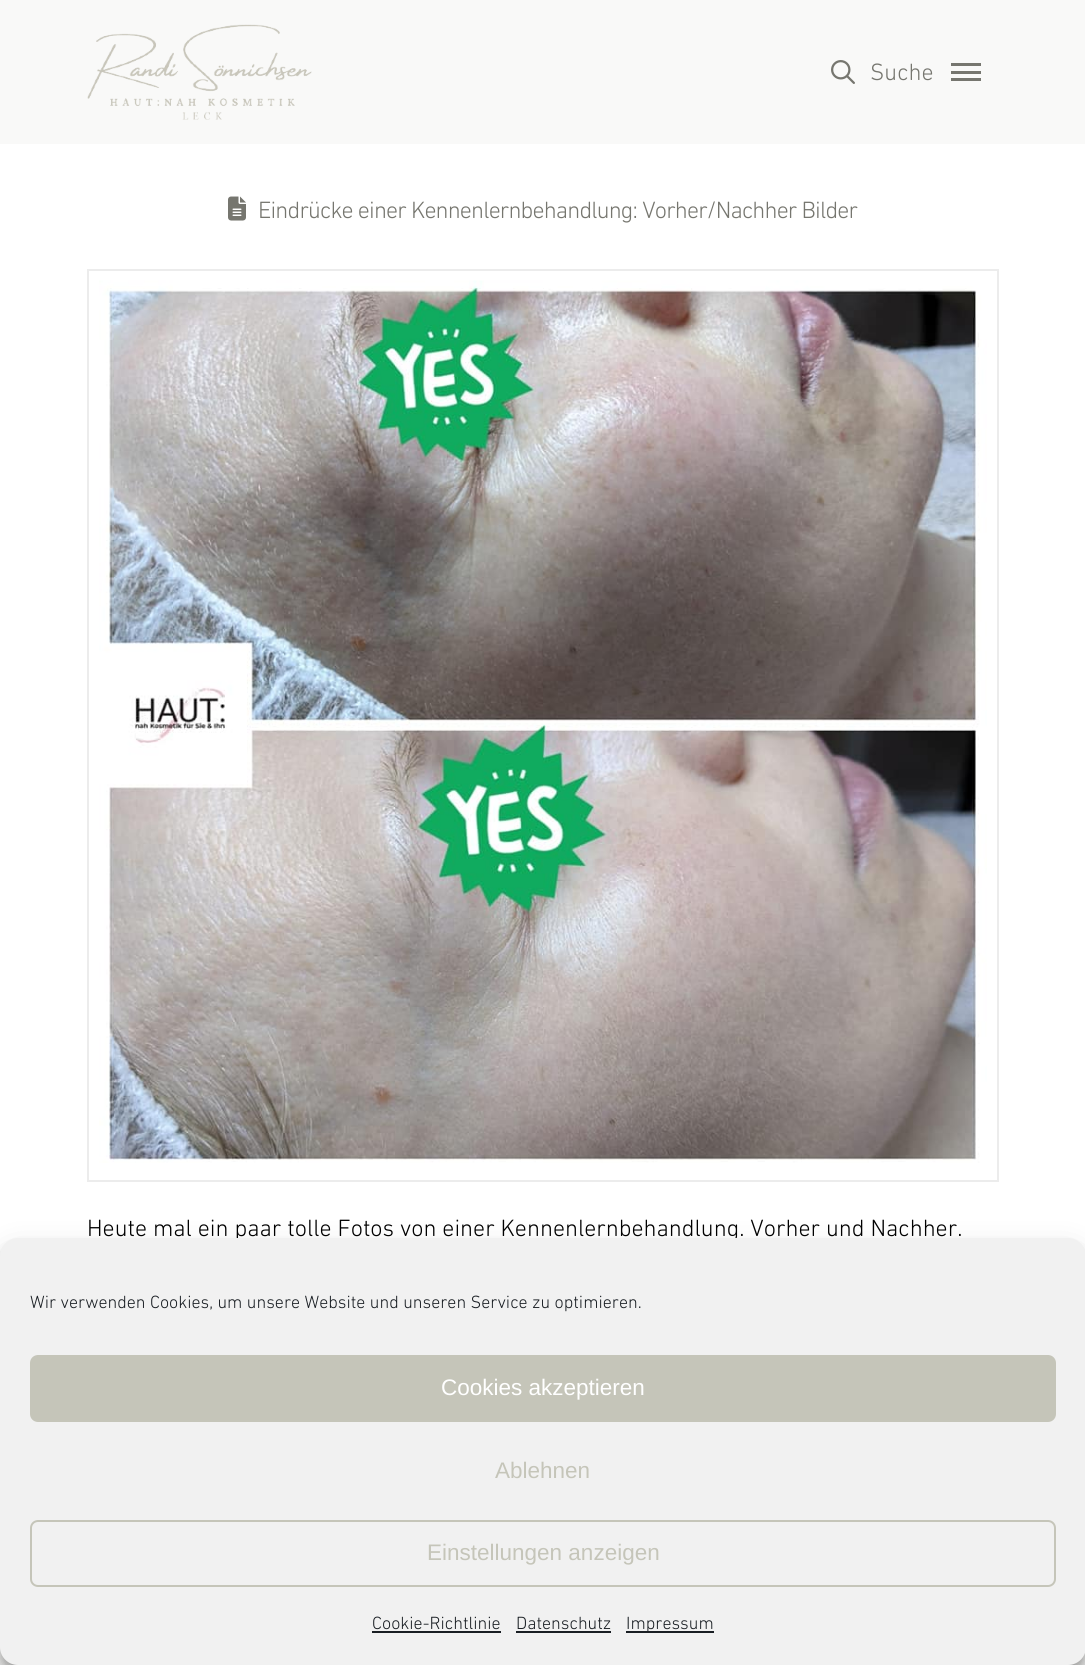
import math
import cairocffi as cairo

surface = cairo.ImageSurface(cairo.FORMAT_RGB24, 1085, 1665)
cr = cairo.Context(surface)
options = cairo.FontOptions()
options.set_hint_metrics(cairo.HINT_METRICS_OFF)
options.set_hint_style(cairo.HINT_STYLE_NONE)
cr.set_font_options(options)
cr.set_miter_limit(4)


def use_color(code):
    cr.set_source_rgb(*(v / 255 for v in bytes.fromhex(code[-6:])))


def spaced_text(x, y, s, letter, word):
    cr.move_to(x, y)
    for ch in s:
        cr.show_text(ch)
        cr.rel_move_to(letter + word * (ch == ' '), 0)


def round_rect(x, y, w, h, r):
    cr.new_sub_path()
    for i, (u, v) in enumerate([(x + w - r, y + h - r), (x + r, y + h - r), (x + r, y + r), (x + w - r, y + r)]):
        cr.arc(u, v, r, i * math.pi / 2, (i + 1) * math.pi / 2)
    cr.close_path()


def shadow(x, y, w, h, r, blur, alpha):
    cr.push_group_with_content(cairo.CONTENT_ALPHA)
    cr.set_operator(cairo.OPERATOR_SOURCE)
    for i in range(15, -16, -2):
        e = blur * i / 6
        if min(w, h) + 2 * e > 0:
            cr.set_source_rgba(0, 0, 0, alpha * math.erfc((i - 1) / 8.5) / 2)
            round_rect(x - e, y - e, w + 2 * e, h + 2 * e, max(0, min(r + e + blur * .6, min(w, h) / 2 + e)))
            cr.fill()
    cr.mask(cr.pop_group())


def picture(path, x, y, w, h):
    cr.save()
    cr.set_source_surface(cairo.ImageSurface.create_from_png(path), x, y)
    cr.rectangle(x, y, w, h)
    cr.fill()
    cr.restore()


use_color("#ffffff")
cr.paint()
use_color("#f9f9f8")
cr.rectangle(0, 0, 1085, 144)
cr.fill()
picture("img1.png", 87, 24, 225, 96)
picture("img2.png", 831, 60, 24, 24)
cr.select_font_face("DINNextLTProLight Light")
cr.set_font_size(24)
use_color("#76766f")
cr.move_to(870, 80)
cr.show_text("Suche")
cr.rectangle(951, 63, 30, 3)
cr.fill()
cr.rectangle(951, 71, 30, 3)
cr.fill()
cr.rectangle(951, 78, 30, 3)
cr.fill()
picture("img3.png", 228, 196, 18, 25)
spaced_text(258, 218, "Eindrücke einer Kennenlernbehandlung: Vorher/Nachher Bilder", -0.85, 0)
cr.rectangle(88, 270, 910, 911)
use_color("#ececec")
cr.stroke()
picture("img4.png", 99, 280, 888, 883)
use_color("#000000")
cr.move_to(87, 1236)
cr.show_text("Heute mal ein paar tolle Fotos von einer Kennenlernbehandlung. Vorher und Nachher.")
use_color("#f9f9f8")
cr.rectangle(0, 1647, 1085, 18)
cr.fill()
use_color("#000000")
shadow(0, 1247, 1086, 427, 18, 4.5, 0.23)
shadow(0, 1253, 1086, 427, 18, 15, 0.19)
use_color("#f1f1f1")
round_rect(0, 1238, 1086, 427, 18)
cr.fill()
cr.set_font_size(18)
use_color("#191e23")
cr.move_to(30, 1308)
cr.show_text("Wir verwenden Cookies, um unsere Website und unseren Service zu optimieren.")
use_color("#c5c5b9")
round_rect(31, 1356, 1024, 65, 7)
cr.fill_preserve()
cr.stroke()
cr.select_font_face("Liberation Sans")
cr.set_font_size(22.5)
use_color("#ffffff")
cr.move_to(441, 1395)
cr.show_text("Cookies akzeptieren")
use_color("#c5c5b9")
cr.move_to(495, 1478)
cr.show_text("Ablehnen")
round_rect(31, 1521, 1024, 65, 7)
cr.stroke()
cr.move_to(427, 1560)
cr.show_text("Einstellungen anzeigen")
cr.select_font_face("DINNextLTProLight Light")
cr.set_font_size(18)
use_color("#191e23")
cr.move_to(372, 1629)
cr.show_text("Cookie-Richtlinie")
cr.rectangle(372, 1631, 129, 2)
cr.fill()
cr.move_to(516, 1629)
cr.show_text("Datenschutz")
cr.rectangle(516, 1631, 95, 2)
cr.fill()
cr.rectangle(626, 1631, 88, 2)
cr.fill()
cr.move_to(626, 1629)
cr.show_text("Impressum")
surface.write_to_png("result.png")
